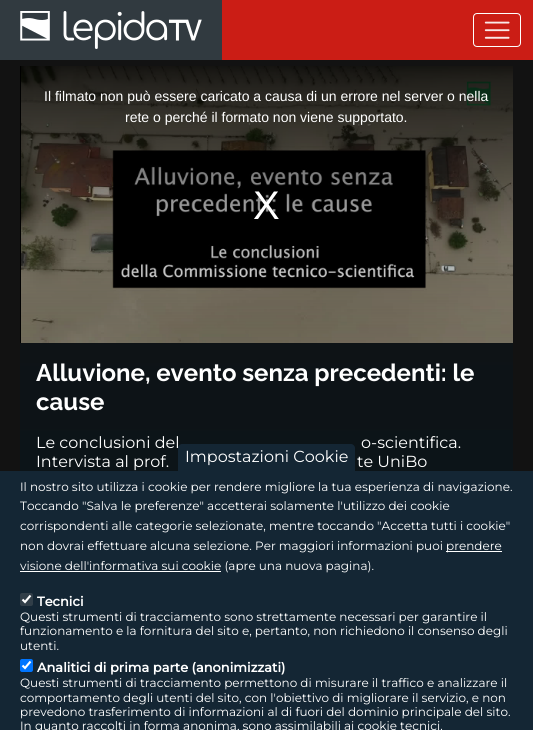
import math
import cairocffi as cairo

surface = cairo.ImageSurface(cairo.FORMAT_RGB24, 533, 730)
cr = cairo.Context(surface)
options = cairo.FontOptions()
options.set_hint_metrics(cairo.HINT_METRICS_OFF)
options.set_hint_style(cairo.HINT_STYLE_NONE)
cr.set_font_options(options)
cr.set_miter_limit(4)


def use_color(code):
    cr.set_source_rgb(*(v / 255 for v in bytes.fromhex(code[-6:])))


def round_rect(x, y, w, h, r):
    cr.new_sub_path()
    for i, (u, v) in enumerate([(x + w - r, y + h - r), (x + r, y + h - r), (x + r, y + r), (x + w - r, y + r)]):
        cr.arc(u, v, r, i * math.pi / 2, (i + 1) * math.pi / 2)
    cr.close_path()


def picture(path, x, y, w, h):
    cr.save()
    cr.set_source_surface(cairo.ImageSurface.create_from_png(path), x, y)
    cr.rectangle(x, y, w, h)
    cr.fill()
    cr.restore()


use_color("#121212")
cr.paint()
use_color("#cb1d15")
cr.rectangle(222, 0, 311, 60)
cr.fill()
use_color("#313a40")
cr.rectangle(0, 0, 222, 60)
cr.fill()
picture("img1.png", 20, 11, 182, 38)
round_rect(473.5, 13.5, 47, 33, 3.5)
use_color("#ffffff")
cr.set_line_width(1)
cr.stroke()
picture("img2.png", 484, 21, 26, 18)
gradient = cairo.LinearGradient(266, 66, 267, 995)
gradient.add_color_stop_rgba(0, 0.071, 0.071, 0.071, 1)
gradient.add_color_stop_rgba(0.5, 0.043, 0.078, 0.098, 1)
gradient.add_color_stop_rgba(1, 0.078, 0.149, 0.204, 1)
cr.set_source(gradient)
cr.rectangle(20, 343, 493, 128)
cr.fill()
use_color("#000000")
cr.rectangle(20, 66, 1, 277)
cr.fill()
picture("img3.png", 21, 66, 492, 277)
cr.select_font_face("Liberation Sans")
cr.set_font_size(14)
use_color("#ffffff")
cr.move_to(44, 101)
cr.show_text("Il filmato non può essere caricato a causa di un errore nel server o nella")
cr.move_to(125, 122)
cr.show_text("rete o perché il formato non viene supportato.")
cr.set_font_size(40)
cr.move_to(253, 219)
cr.show_text("X")
cr.select_font_face("Raleway Thin")
cr.set_font_size(24)
cr.move_to(36, 381)
cr.show_text("Alluvione, evento senza precedenti: le")
cr.move_to(36, 410)
cr.show_text("cause")
cr.select_font_face("Montserrat Thin")
cr.set_font_size(16)
cr.move_to(36, 448)
cr.show_text("Le conclusioni del")
cr.move_to(361, 448)
cr.show_text("o-scientifica.")
cr.move_to(36, 467)
cr.show_text("Intervista al prof.")
cr.move_to(357, 467)
cr.show_text("te UniBo")
use_color("#142634")
cr.rectangle(0, 471, 533, 259)
cr.fill()
cr.new_path()
cr.move_to(182, 444)
cr.line_to(351, 444)
cr.curve_to(353, 444, 355, 446, 355, 448)
cr.line_to(355, 471)
cr.line_to(178, 471)
cr.line_to(178, 448)
cr.curve_to(178, 446, 180, 444, 182, 444)
cr.close_path()
cr.fill()
use_color("#ffffff")
cr.move_to(185, 462)
cr.show_text("Impostazioni Cookie")
cr.set_font_size(12)
cr.move_to(20, 491)
cr.show_text("Il nostro sito utilizza i cookie per rendere migliore la tua esperienza di navigazione.")
cr.move_to(20, 510)
cr.show_text("Toccando \"Salva le preferenze\" accetterai solamente l'utilizzo dei cookie")
cr.move_to(20, 530)
cr.show_text("corrispondenti alle categorie selezionate, mentre toccando \"Accetta tutti i cookie\"")
cr.move_to(20, 550)
cr.show_text("non dovrai effettuare alcuna selezione. Per maggiori informazioni puoi")
cr.rectangle(446, 551, 56, 1)
cr.fill()
cr.move_to(446, 550)
cr.show_text("prendere")
cr.rectangle(20, 571, 201, 1)
cr.fill()
cr.move_to(20, 570)
cr.show_text("visione dell'informativa sui cookie (apre una nuova pagina).")
use_color("#313e48")
round_rect(20, 593, 13, 13, 2)
cr.fill()
cr.new_path()
cr.move_to(22.5, 599.5)
cr.line_to(25, 602)
cr.line_to(30.5, 595.5)
use_color("#ffffff")
cr.set_line_width(2.1)
cr.stroke()
cr.select_font_face("Montserrat", cairo.FONT_SLANT_NORMAL, cairo.FONT_WEIGHT_BOLD)
cr.set_font_size(13)
cr.move_to(37, 606)
cr.show_text("Tecnici")
cr.select_font_face("Montserrat Thin")
cr.set_font_size(12)
cr.move_to(20, 621)
cr.show_text("Questi strumenti di tracciamento sono strettamente necessari per garantire il")
cr.move_to(20, 635)
cr.show_text("funzionamento e la fornitura del sito e, pertanto, non richiedono il consenso degli")
cr.move_to(20, 650)
cr.show_text("utenti.")
use_color("#0075ff")
round_rect(20, 659, 13, 13, 2)
cr.fill()
cr.new_path()
cr.move_to(22.5, 665.5)
cr.line_to(25, 668)
cr.line_to(30.5, 661.5)
use_color("#ffffff")
cr.stroke()
cr.select_font_face("Montserrat", cairo.FONT_SLANT_NORMAL, cairo.FONT_WEIGHT_BOLD)
cr.set_font_size(13)
cr.move_to(37, 672)
cr.show_text("Analitici di prima parte (anonimizzati)")
cr.select_font_face("Montserrat Thin")
cr.set_font_size(12)
cr.move_to(20, 687)
cr.show_text("Questi strumenti di tracciamento permettono di misurare il traffico e analizzare il")
cr.move_to(20, 702)
cr.show_text("comportamento degli utenti del sito, con l'obiettivo di migliorare il servizio, e non")
cr.move_to(20, 716)
cr.show_text("prevedono trasferimento di informazioni al di fuori del dominio principale del sito.")
cr.move_to(20, 730)
cr.show_text("In quanto raccolti in forma anonima, sono assimilabili ai cookie tecnici.")
surface.write_to_png("result.png")
